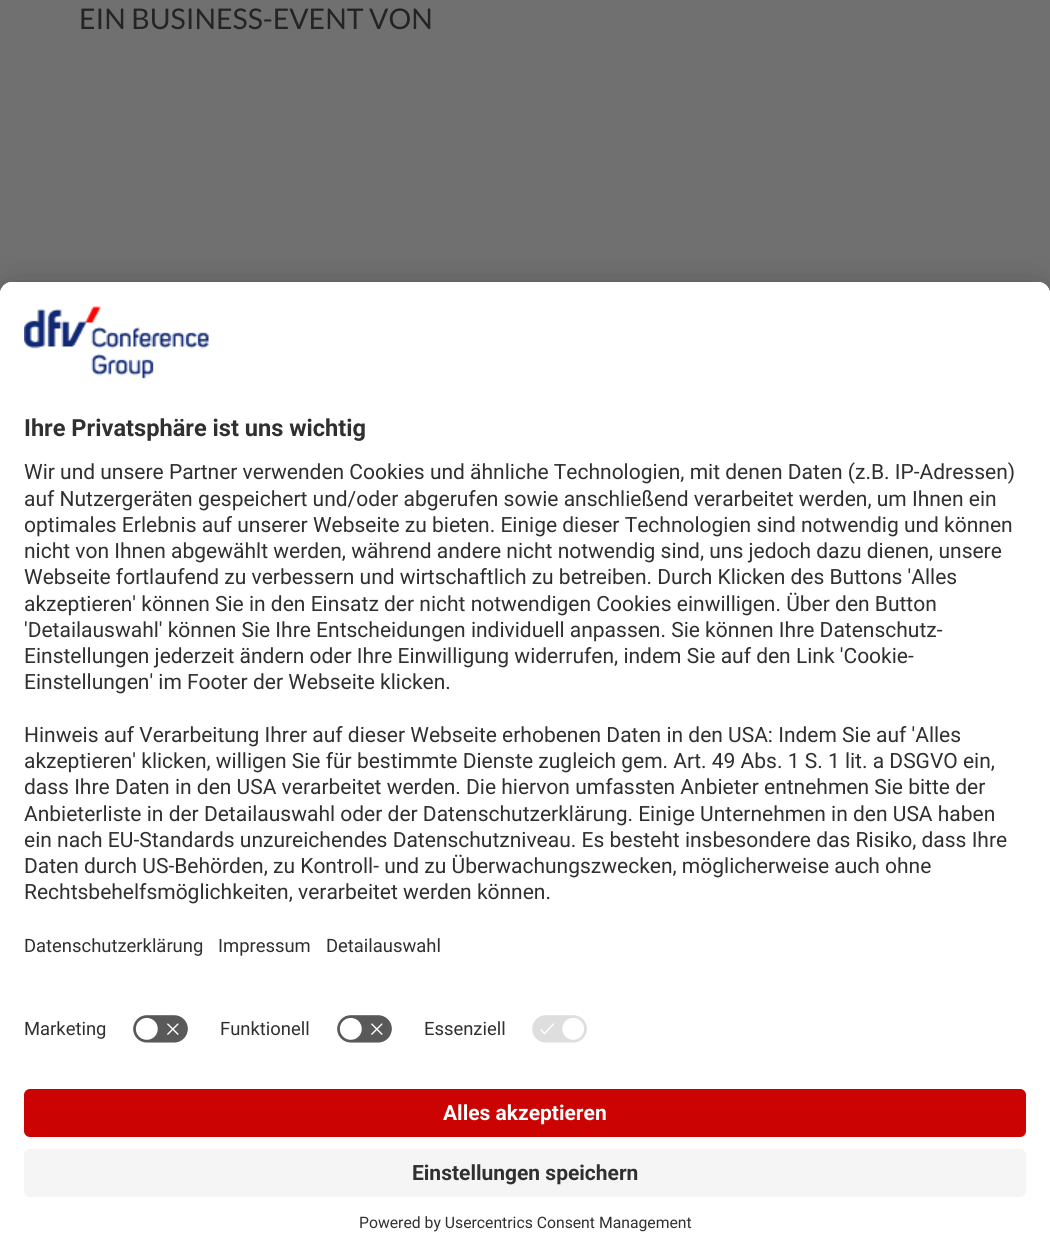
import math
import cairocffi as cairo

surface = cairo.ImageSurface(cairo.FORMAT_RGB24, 1050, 1256)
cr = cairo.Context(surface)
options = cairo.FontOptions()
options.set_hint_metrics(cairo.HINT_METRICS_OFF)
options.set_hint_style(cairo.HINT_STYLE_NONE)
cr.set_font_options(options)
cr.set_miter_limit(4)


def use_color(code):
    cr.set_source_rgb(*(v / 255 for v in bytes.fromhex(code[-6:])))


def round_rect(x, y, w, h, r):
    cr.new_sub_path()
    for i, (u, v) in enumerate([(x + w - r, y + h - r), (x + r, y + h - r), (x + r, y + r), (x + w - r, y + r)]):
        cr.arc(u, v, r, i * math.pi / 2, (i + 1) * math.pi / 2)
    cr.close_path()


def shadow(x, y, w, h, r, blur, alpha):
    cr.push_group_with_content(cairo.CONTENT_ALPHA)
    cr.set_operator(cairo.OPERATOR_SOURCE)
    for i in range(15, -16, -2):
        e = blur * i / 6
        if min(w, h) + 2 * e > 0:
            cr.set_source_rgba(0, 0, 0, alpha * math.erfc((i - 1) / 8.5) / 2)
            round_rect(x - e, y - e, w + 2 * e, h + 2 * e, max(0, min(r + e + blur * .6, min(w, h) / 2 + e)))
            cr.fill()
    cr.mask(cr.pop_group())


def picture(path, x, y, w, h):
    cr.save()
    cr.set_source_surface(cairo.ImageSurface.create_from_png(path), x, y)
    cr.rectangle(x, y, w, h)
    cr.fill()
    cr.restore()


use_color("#707070")
cr.paint()
cr.select_font_face("Lato")
cr.set_font_size(28.5)
use_color("#242424")
cr.move_to(79, 29)
cr.show_text("EIN BUSINESS-EVENT VON")
use_color("#000000")
shadow(0, 312, 1050, 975, 12, 21, 0.3)
shadow(0, 290, 1050, 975, 12, 19.5, 0.22)
use_color("#ffffff")
cr.new_path()
cr.move_to(12, 282)
cr.line_to(1038, 282)
cr.curve_to(1044.5, 282, 1050, 287.5, 1050, 294)
cr.line_to(1050, 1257)
cr.line_to(0, 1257)
cr.line_to(0, 294)
cr.curve_to(0, 287.5, 5.5, 282, 12, 282)
cr.close_path()
cr.fill()
cr.new_path()
cr.move_to(12, 282)
cr.line_to(1038, 282)
cr.curve_to(1044.5, 282, 1050, 287.5, 1050, 294)
cr.line_to(1050, 1071)
cr.line_to(0, 1071)
cr.line_to(0, 294)
cr.curve_to(0, 287.5, 5.5, 282, 12, 282)
cr.close_path()
cr.fill()
cr.new_path()
cr.move_to(12, 282)
cr.line_to(1038, 282)
cr.curve_to(1044.5, 282, 1050, 287.5, 1050, 294)
cr.line_to(1050, 1005)
cr.line_to(0, 1005)
cr.line_to(0, 294)
cr.curve_to(0, 287.5, 5.5, 282, 12, 282)
cr.close_path()
cr.fill()
picture("img1.png", 24, 306, 185, 73)
cr.select_font_face("Roboto", cairo.FONT_SLANT_NORMAL, cairo.FONT_WEIGHT_BOLD)
cr.set_font_size(23.6)
use_color("#303030")
cr.move_to(24, 436)
cr.show_text("Ihre Privatsphäre ist uns wichtig")
cr.select_font_face("Roboto")
cr.set_font_size(21)
cr.move_to(24, 479)
cr.show_text("Wir und unsere Partner verwenden Cookies und ähnliche Technologien, mit denen Daten (z.B. IP-Adressen)")
cr.move_to(24, 506)
cr.show_text("auf Nutzergeräten gespeichert und/oder abgerufen sowie anschließend verarbeitet werden, um Ihnen ein")
cr.move_to(24, 532)
cr.show_text("optimales Erlebnis auf unserer Webseite zu bieten. Einige dieser Technologien sind notwendig und können")
cr.move_to(24, 558)
cr.show_text("nicht von Ihnen abgewählt werden, während andere nicht notwendig sind, uns jedoch dazu dienen, unsere")
cr.move_to(24, 584)
cr.show_text("Webseite fortlaufend zu verbessern und wirtschaftlich zu betreiben. Durch Klicken des Buttons 'Alles")
cr.move_to(24, 611)
cr.show_text("akzeptieren' können Sie in den Einsatz der nicht notwendigen Cookies einwilligen. Über den Button")
cr.move_to(24, 637)
cr.show_text("'Detailauswahl' können Sie Ihre Entscheidungen individuell anpassen. Sie können Ihre Datenschutz-")
cr.move_to(24, 663)
cr.show_text("Einstellungen jederzeit ändern oder Ihre Einwilligung widerrufen, indem Sie auf den Link 'Cookie-")
cr.move_to(24, 689)
cr.show_text("Einstellungen' im Footer der Webseite klicken.")
cr.move_to(24, 742)
cr.show_text("Hinweis auf Verarbeitung Ihrer auf dieser Webseite erhobenen Daten in den USA: Indem Sie auf 'Alles")
cr.move_to(24, 768)
cr.show_text("akzeptieren' klicken, willigen Sie für bestimmte Dienste zugleich gem. Art. 49 Abs. 1 S. 1 lit. a DSGVO ein,")
cr.move_to(24, 794)
cr.show_text("dass Ihre Daten in den USA verarbeitet werden. Die hiervon umfassten Anbieter entnehmen Sie bitte der")
cr.move_to(24, 821)
cr.show_text("Anbieterliste in der Detailauswahl oder der Datenschutzerklärung. Einige Unternehmen in den USA haben")
cr.move_to(24, 847)
cr.show_text("ein nach EU-Standards unzureichendes Datenschutzniveau. Es besteht insbesondere das Risiko, dass Ihre")
cr.move_to(24, 873)
cr.show_text("Daten durch US-Behörden, zu Kontroll- und zu Überwachungszwecken, möglicherweise auch ohne")
cr.move_to(24, 899)
cr.show_text("Rechtsbehelfsmöglichkeiten, verarbeitet werden können.")
cr.set_font_size(18.4)
cr.move_to(24, 952)
cr.show_text("Datenschutzerklärung")
cr.move_to(218, 952)
cr.show_text("Impressum")
cr.move_to(326, 952)
cr.show_text("Detailauswahl")
cr.move_to(24, 1035)
cr.show_text("Marketing")
picture("img2.png", 133, 1015, 55, 28)
cr.move_to(220, 1035)
cr.show_text("Funktionell")
picture("img2.png", 337, 1015, 55, 28)
cr.move_to(424, 1035)
cr.show_text("Essenziell")
picture("img3.png", 532, 1015, 55, 28)
use_color("#cc0303")
round_rect(24, 1089, 1002, 48, 6)
cr.fill()
cr.select_font_face("Roboto", cairo.FONT_SLANT_NORMAL, cairo.FONT_WEIGHT_BOLD)
cr.set_font_size(21)
use_color("#ffffff")
cr.move_to(443, 1120)
cr.show_text("Alles akzeptieren")
use_color("#f5f5f5")
round_rect(24, 1149, 1002, 48, 6)
cr.fill()
use_color("#303030")
cr.move_to(412, 1180)
cr.show_text("Einstellungen speichern")
cr.select_font_face("Roboto")
cr.set_font_size(15.75)
cr.move_to(359, 1228)
cr.show_text("Powered by Usercentrics Consent Management")
surface.write_to_png("result.png")
